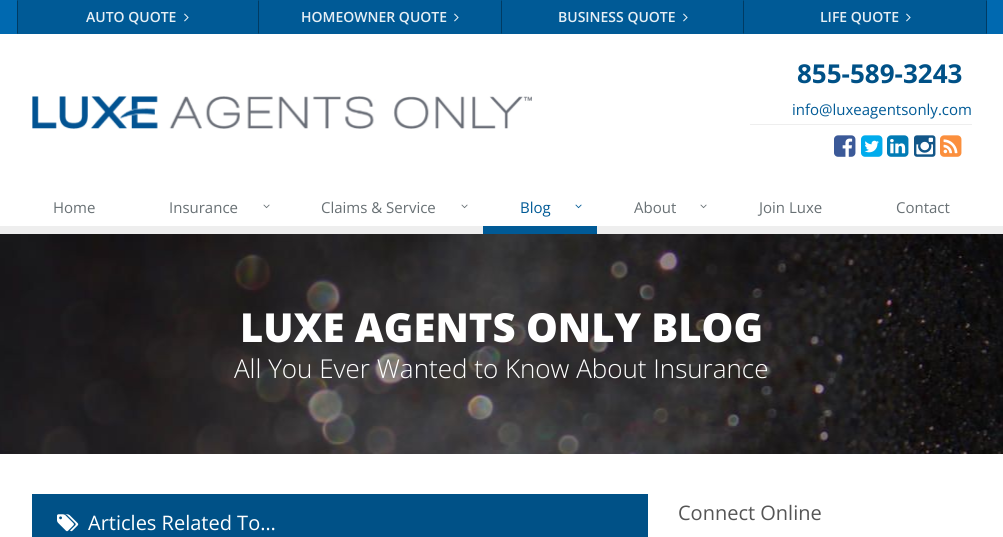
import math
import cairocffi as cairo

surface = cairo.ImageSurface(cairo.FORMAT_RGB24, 1003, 537)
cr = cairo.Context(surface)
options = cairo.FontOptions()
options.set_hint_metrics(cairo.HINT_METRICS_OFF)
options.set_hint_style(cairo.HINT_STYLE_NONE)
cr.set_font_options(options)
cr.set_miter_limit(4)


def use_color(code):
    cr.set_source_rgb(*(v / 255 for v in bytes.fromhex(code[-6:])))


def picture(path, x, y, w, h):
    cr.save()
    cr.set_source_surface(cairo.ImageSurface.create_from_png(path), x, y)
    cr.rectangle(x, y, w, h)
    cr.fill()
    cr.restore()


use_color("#ffffff")
cr.paint()
use_color("#eeeeee")
cr.rectangle(0, 226, 1003, 8)
cr.fill()
use_color("#0069b0")
cr.rectangle(0, 0, 1003, 34)
cr.fill()
use_color("#005a96")
cr.rectangle(17, 0, 970, 34)
cr.fill()
use_color("#003b63")
cr.new_path()
cr.move_to(259, 0)
cr.line_to(259, 34)
cr.line_to(258, 33)
cr.line_to(258, 1)
cr.close_path()
cr.fill()
cr.new_path()
cr.move_to(17, 34)
cr.line_to(17, 0)
cr.line_to(18, 1)
cr.line_to(18, 33)
cr.close_path()
cr.fill()
cr.select_font_face("Open Sans SemiBold")
cr.set_font_size(14)
use_color("#e6eff5")
cr.move_to(86, 22)
cr.show_text("AUTO QUOTE")
picture("img1.png", 184, 13, 5, 9)
use_color("#003b63")
cr.new_path()
cr.move_to(502, 0)
cr.line_to(502, 34)
cr.line_to(501, 33)
cr.line_to(501, 1)
cr.close_path()
cr.fill()
use_color("#e6eff5")
cr.move_to(301, 22)
cr.show_text("HOMEOWNER QUOTE")
picture("img1.png", 454, 13, 5, 9)
use_color("#003b63")
cr.new_path()
cr.move_to(744, 0)
cr.line_to(744, 34)
cr.line_to(743, 33)
cr.line_to(743, 1)
cr.close_path()
cr.fill()
use_color("#e6eff5")
cr.move_to(558, 22)
cr.show_text("BUSINESS QUOTE")
picture("img1.png", 683, 13, 5, 9)
use_color("#003b63")
cr.new_path()
cr.move_to(987, 0)
cr.line_to(987, 34)
cr.line_to(986, 33)
cr.line_to(986, 1)
cr.close_path()
cr.fill()
use_color("#e6eff5")
cr.move_to(820, 22)
cr.show_text("LIFE QUOTE")
picture("img1.png", 906, 13, 5, 9)
picture("img2.png", 32, 96, 500, 33)
use_color("#eeeeee")
cr.rectangle(750, 124, 222, 1)
cr.fill()
cr.select_font_face("Open Sans", cairo.FONT_SLANT_NORMAL, cairo.FONT_WEIGHT_BOLD)
cr.set_font_size(26)
use_color("#005187")
cr.move_to(797, 83)
cr.show_text("855-589-3243")
cr.select_font_face("Open Sans")
cr.set_font_size(15)
use_color("#005a96")
cr.move_to(792, 115)
cr.show_text("info@luxeagentsonly.com")
picture("img3.png", 834, 135, 22, 22)
picture("img4.png", 861, 135, 22, 22)
picture("img5.png", 887, 135, 22, 22)
picture("img6.png", 914, 135, 22, 22)
picture("img7.png", 940, 135, 22, 22)
use_color("#687074")
cr.move_to(53, 213)
cr.show_text("Home")
cr.move_to(169, 213)
cr.show_text("Insurance")
picture("img8.png", 263, 204, 7, 5)
cr.move_to(321, 213)
cr.show_text("Claims & Service")
picture("img8.png", 461, 204, 7, 5)
use_color("#005a96")
cr.rectangle(483, 226, 114, 8)
cr.fill()
cr.move_to(520, 213)
cr.show_text("Blog")
picture("img9.png", 575, 204, 7, 5)
use_color("#687074")
cr.move_to(634, 213)
cr.show_text("About")
picture("img8.png", 700, 204, 7, 5)
cr.move_to(759, 213)
cr.show_text("Join Luxe")
cr.move_to(896, 213)
cr.show_text("Contact")
picture("img10.png", 0, 234, 1003, 220)
cr.select_font_face("Open Sans ExtraBold")
cr.set_font_size(40)
use_color("#ffffff")
cr.move_to(240, 342)
cr.show_text("LUXE AGENTS ONLY BLOG")
cr.select_font_face("Open Sans Light")
cr.set_font_size(26)
cr.move_to(234, 378)
cr.show_text("All You Ever Wanted to Know About Insurance")
use_color("#005187")
cr.rectangle(32, 494, 616, 43)
cr.fill()
picture("img11.png", 57, 514, 22, 18)
cr.select_font_face("Open Sans")
cr.set_font_size(20)
use_color("#ffffff")
cr.move_to(88, 530)
cr.show_text("Articles Related To…")
use_color("#555555")
cr.move_to(678, 520)
cr.show_text("Connect Online")
surface.write_to_png("result.png")
